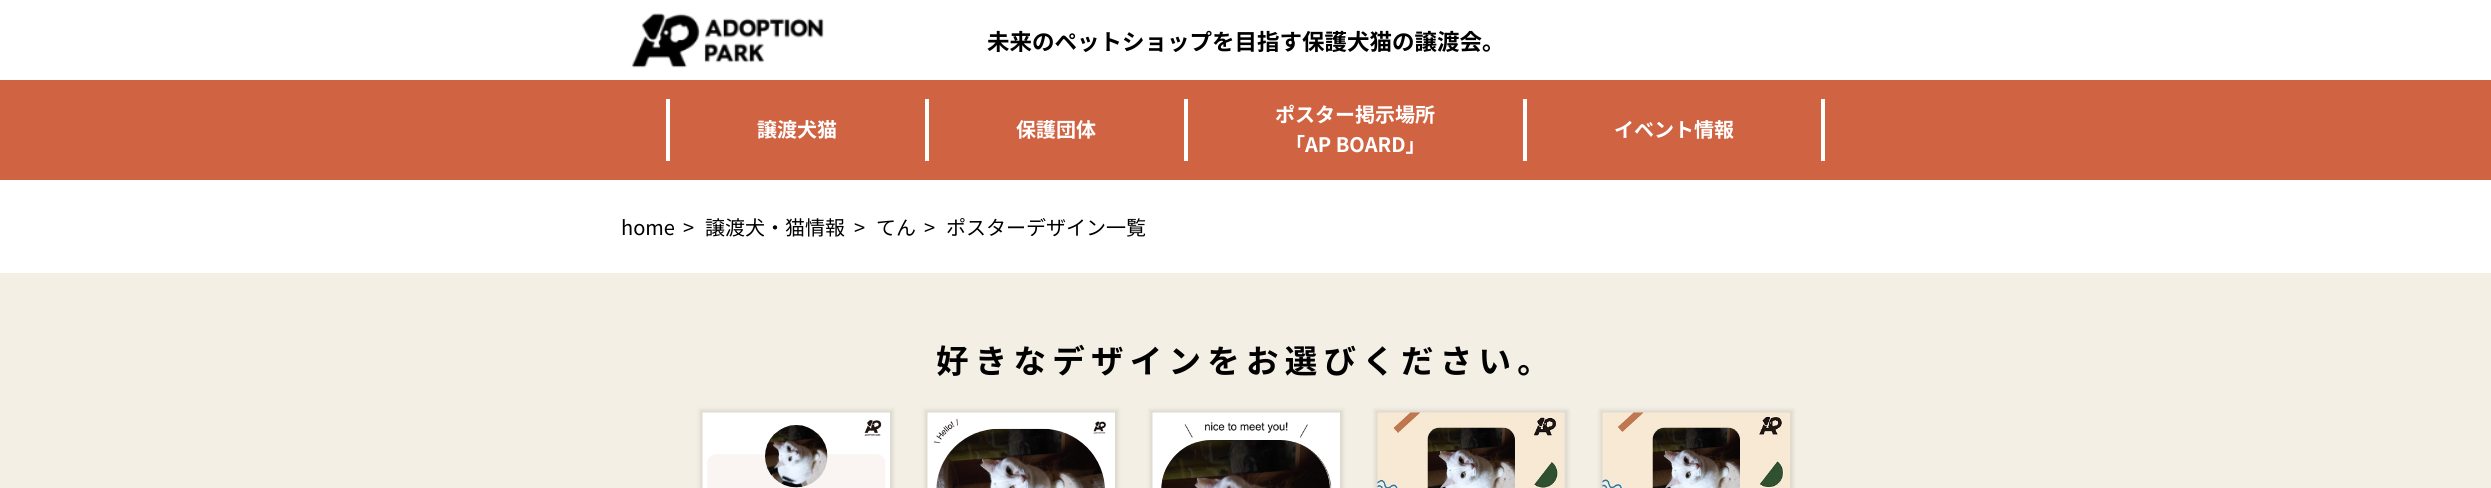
import math
import cairocffi as cairo

surface = cairo.ImageSurface(cairo.FORMAT_RGB24, 2491, 488)
cr = cairo.Context(surface)
options = cairo.FontOptions()
options.set_hint_metrics(cairo.HINT_METRICS_OFF)
options.set_hint_style(cairo.HINT_STYLE_NONE)
cr.set_font_options(options)
cr.set_miter_limit(4)


def use_color(code):
    cr.set_source_rgb(*(v / 255 for v in bytes.fromhex(code[-6:])))


def spaced_text(x, y, s, letter, word):
    cr.move_to(x, y)
    for ch in s:
        cr.show_text(ch)
        cr.rel_move_to(letter + word * (ch == ' '), 0)


def round_rect(x, y, w, h, r):
    cr.new_sub_path()
    for i, (u, v) in enumerate([(x + w - r, y + h - r), (x + r, y + h - r), (x + r, y + r), (x + w - r, y + r)]):
        cr.arc(u, v, r, i * math.pi / 2, (i + 1) * math.pi / 2)
    cr.close_path()


def shadow(x, y, w, h, r, blur, alpha):
    cr.push_group_with_content(cairo.CONTENT_ALPHA)
    cr.set_operator(cairo.OPERATOR_SOURCE)
    for i in range(15, -16, -2):
        e = blur * i / 6
        if min(w, h) + 2 * e > 0:
            cr.set_source_rgba(0, 0, 0, alpha * math.erfc((i - 1) / 8.5) / 2)
            round_rect(x - e, y - e, w + 2 * e, h + 2 * e, max(0, min(r + e + blur * .6, min(w, h) / 2 + e)))
            cr.fill()
    cr.mask(cr.pop_group())


def picture(path, x, y, w, h):
    cr.save()
    cr.set_source_surface(cairo.ImageSurface.create_from_png(path), x, y)
    cr.rectangle(x, y, w, h)
    cr.fill()
    cr.restore()


use_color("#ffffff")
cr.paint()
picture("img1.png", 631, 13, 193, 55)
cr.select_font_face("Noto Sans JP", cairo.FONT_SLANT_NORMAL, cairo.FONT_WEIGHT_BOLD)
cr.set_font_size(22.5)
use_color("#000000")
cr.move_to(987, 50)
cr.show_text("未来のペットショップを目指す保護犬猫の譲渡会。")
use_color("#d06342")
cr.rectangle(0, 80, 2491, 100)
cr.fill()
use_color("#ffffff")
cr.rectangle(666, 99, 4, 62)
cr.fill()
cr.set_font_size(20)
cr.move_to(757, 137)
cr.show_text("譲渡犬猫")
cr.rectangle(925, 99, 4, 62)
cr.fill()
cr.move_to(1016, 137)
cr.show_text("保護団体")
cr.rectangle(1184, 99, 4, 62)
cr.fill()
cr.move_to(1275, 122)
cr.show_text("ポスター掲示場所")
cr.move_to(1285, 152)
cr.show_text("「AP BOARD」")
cr.rectangle(1523, 99, 4, 62)
cr.fill()
cr.move_to(1614, 137)
cr.show_text("イベント情報")
cr.rectangle(1821, 99, 4, 62)
cr.fill()
cr.select_font_face("Noto Sans JP")
use_color("#000000")
cr.move_to(621, 235)
cr.show_text("home")
cr.move_to(683, 235)
cr.show_text(">")
cr.move_to(705, 235)
cr.show_text("譲渡犬・猫情報")
cr.move_to(854, 235)
cr.show_text(">")
cr.move_to(876, 235)
cr.show_text("てん")
cr.move_to(924, 235)
cr.show_text(">")
cr.move_to(946, 235)
cr.show_text("ポスターデザイン一覧")
use_color("#f3efe4")
cr.rectangle(0, 273, 2491, 215)
cr.fill()
cr.select_font_face("Noto Sans JP", cairo.FONT_SLANT_NORMAL, cairo.FONT_WEIGHT_BOLD)
cr.set_font_size(32.5)
use_color("#000000")
spaced_text(936, 373, "好きなデザインをお選びください。", 6.25, 0)
use_color("#000000")
shadow(700, 410, 193, 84, 0, 2, 0.1)
picture("img2.png", 702, 412, 188, 76)
picture("img3.png", 765, 425, 63, 63)
shadow(925, 410, 193, 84, 0, 2, 0.1)
picture("img4.png", 927, 412, 188, 76)
picture("img5.png", 936, 428, 169, 60)
shadow(1150, 410, 193, 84, 0, 2, 0.1)
picture("img6.png", 1152, 412, 188, 76)
picture("img7.png", 1161, 440, 169, 48)
shadow(1375, 410, 193, 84, 0, 2, 0.1)
picture("img8.png", 1377, 412, 188, 76)
picture("img9.png", 1427, 427, 88, 61)
shadow(1600, 410, 193, 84, 0, 2, 0.1)
picture("img10.png", 1602, 412, 188, 76)
picture("img11.png", 1652, 427, 88, 61)
surface.write_to_png("result.png")
